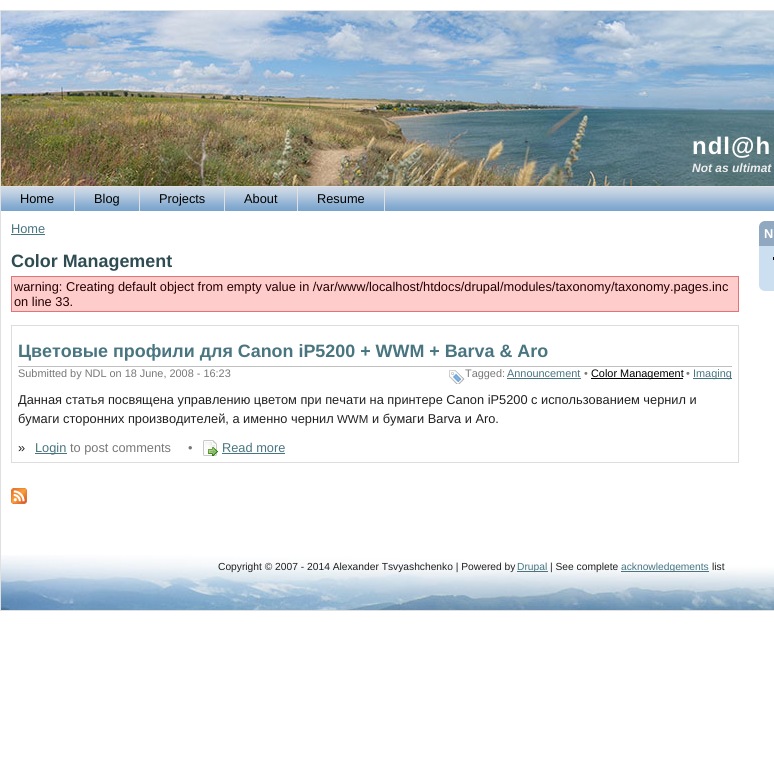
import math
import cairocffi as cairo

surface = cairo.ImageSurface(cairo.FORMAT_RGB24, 774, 774)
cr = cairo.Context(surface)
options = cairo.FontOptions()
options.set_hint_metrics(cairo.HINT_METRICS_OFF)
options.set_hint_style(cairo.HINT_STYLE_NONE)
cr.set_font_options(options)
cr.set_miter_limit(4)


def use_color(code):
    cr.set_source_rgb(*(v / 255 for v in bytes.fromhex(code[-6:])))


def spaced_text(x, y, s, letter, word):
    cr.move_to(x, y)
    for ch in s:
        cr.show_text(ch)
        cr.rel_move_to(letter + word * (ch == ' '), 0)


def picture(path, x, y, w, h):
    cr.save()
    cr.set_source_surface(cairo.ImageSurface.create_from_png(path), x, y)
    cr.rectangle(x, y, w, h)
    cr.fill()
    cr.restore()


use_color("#ffffff")
cr.paint()
use_color("#e0e0e0")
cr.rectangle(0, 10, 774, 1)
cr.fill()
cr.rectangle(0, 10, 1, 601)
cr.fill()
picture("img1.png", 1, 11, 773, 175)
cr.select_font_face("Liberation Sans", cairo.FONT_SLANT_NORMAL, cairo.FONT_WEIGHT_BOLD)
cr.set_font_size(24)
use_color("#ffffff")
spaced_text(692, 154, "ndl@h", 1, 0)
cr.select_font_face("Liberation Sans", cairo.FONT_SLANT_ITALIC, cairo.FONT_WEIGHT_BOLD)
cr.set_font_size(12)
use_color("#eeeeee")
cr.move_to(692, 172)
cr.show_text("Not as ultimat")
picture("img2.png", 1, 187, 773, 24)
use_color("#e0e0e0")
cr.rectangle(1, 186, 773, 1)
cr.fill()
cr.rectangle(74, 187, 1, 24)
cr.fill()
cr.select_font_face("Liberation Sans")
cr.set_font_size(12.8)
use_color("#000000")
cr.move_to(20, 203)
cr.show_text("Home")
use_color("#e0e0e0")
cr.rectangle(139, 187, 1, 24)
cr.fill()
use_color("#000000")
cr.move_to(94, 203)
cr.show_text("Blog")
use_color("#e0e0e0")
cr.rectangle(224, 187, 1, 24)
cr.fill()
use_color("#000000")
cr.move_to(159, 203)
cr.show_text("Projects")
use_color("#e0e0e0")
cr.rectangle(297, 187, 1, 24)
cr.fill()
use_color("#000000")
cr.move_to(244, 203)
cr.show_text("About")
use_color("#e0e0e0")
cr.rectangle(384, 187, 1, 24)
cr.fill()
use_color("#000000")
cr.move_to(317, 203)
cr.show_text("Resume")
use_color("#497580")
cr.move_to(11, 233)
cr.show_text("Home")
cr.rectangle(11, 234, 34, 1)
cr.fill()
cr.select_font_face("Liberation Sans", cairo.FONT_SLANT_NORMAL, cairo.FONT_WEIGHT_BOLD)
cr.set_font_size(17.9)
use_color("#2f4c53")
cr.move_to(11, 267)
cr.show_text("Color Management")
use_color("#ffcccc")
cr.rectangle(11.5, 276.5, 727, 35)
cr.fill_preserve()
use_color("#dd7777")
cr.set_line_width(1)
cr.stroke()
cr.select_font_face("Liberation Sans")
cr.set_font_size(12.8)
use_color("#220000")
cr.move_to(14, 291)
cr.show_text("warning: Creating default object from empty value in /var/www/localhost/htdocs/drupal/modules/taxonomy/taxonomy.pages.inc")
cr.move_to(14, 306)
cr.show_text("on line 33.")
cr.rectangle(11.5, 325.5, 727, 137)
use_color("#dddddd")
cr.stroke()
use_color("#c0c0c0")
cr.rectangle(18, 366, 714, 1)
cr.fill()
cr.select_font_face("Liberation Sans", cairo.FONT_SLANT_NORMAL, cairo.FONT_WEIGHT_BOLD)
cr.set_font_size(17.9)
use_color("#497580")
cr.move_to(18, 357)
cr.show_text("Цветовые профили для Canon iP5200 + WWM + Barva & Aro")
cr.select_font_face("Liberation Sans")
cr.set_font_size(10.9)
use_color("#787878")
cr.move_to(18, 377)
cr.show_text("Submitted by NDL on 18 June, 2008 - 16:23")
picture("img3.png", 449, 370, 16, 14)
cr.move_to(465, 377)
cr.show_text("Tagged:")
use_color("#497580")
cr.move_to(507, 377)
cr.show_text("Announcement")
cr.rectangle(507, 378, 74, 1)
cr.fill()
use_color("#787878")
cr.move_to(584, 377)
cr.show_text("•")
use_color("#000000")
cr.rectangle(591, 378, 92, 1)
cr.fill()
cr.move_to(591, 377)
cr.show_text("Color Management")
use_color("#787878")
cr.move_to(686, 377)
cr.show_text("•")
use_color("#497580")
cr.rectangle(693, 378, 39, 1)
cr.fill()
cr.move_to(693, 377)
cr.show_text("Imaging")
cr.set_font_size(12.8)
use_color("#202020")
cr.move_to(18, 404)
cr.show_text("Данная статья посвящена управлению цветом при печати на принтере Canon iP5200 с использованием чернил и")
cr.move_to(18, 423)
cr.show_text("бумаги сторонних производителей, а именно чернил")
cr.set_font_size(11.5)
cr.move_to(337, 423)
cr.show_text("WWM")
cr.set_font_size(12.8)
cr.move_to(372, 423)
cr.show_text("и бумаги Barva и Aro.")
cr.move_to(18, 452)
cr.show_text("»")
use_color("#497580")
cr.rectangle(35, 453, 32, 1)
cr.fill()
cr.move_to(35, 452)
cr.show_text("Login")
use_color("#787878")
cr.move_to(70, 452)
cr.show_text("to post comments")
cr.move_to(188, 452)
cr.show_text("•")
picture("img4.png", 203, 440, 15, 16)
use_color("#497580")
cr.move_to(222, 452)
cr.show_text("Read more")
cr.rectangle(222, 453, 63, 1)
cr.fill()
picture("img5.png", 11, 488, 16, 16)
use_color("#acbecf")
cr.rectangle(762, 221, 2, 1)
cr.fill()
use_color("#cfdae3")
cr.rectangle(762, 221, 1, 1)
cr.fill()
use_color("#91a9c0")
cr.rectangle(764, 221, 10, 1)
cr.fill()
use_color("#a5b9cb")
cr.rectangle(760, 222, 2, 1)
cr.fill()
use_color("#f4f6f8")
cr.rectangle(760, 222, 1, 1)
cr.fill()
use_color("#91a9c0")
cr.rectangle(762, 222, 12, 1)
cr.fill()
cr.rectangle(760, 223, 14, 1)
cr.fill()
use_color("#a5b9cb")
cr.rectangle(760, 223, 1, 1)
cr.fill()
use_color("#91a9c0")
cr.rectangle(759, 224, 15, 2)
cr.fill()
use_color("#cfdae3")
cr.rectangle(759, 224, 1, 1)
cr.fill()
use_color("#acbecf")
cr.rectangle(759, 225, 1, 1)
cr.fill()
use_color("#91a9c0")
cr.rectangle(759, 226, 15, 20)
cr.fill()
cr.select_font_face("Liberation Sans", cairo.FONT_SLANT_NORMAL, cairo.FONT_WEIGHT_BOLD)
use_color("#ffffff")
cr.move_to(764, 238)
cr.show_text("N")
use_color("#ccdff1")
cr.rectangle(759, 246, 15, 42)
cr.fill()
use_color("#000000")
cr.rectangle(773, 257, 1, 3)
cr.fill()
use_color("#d8e7f4")
cr.rectangle(759, 286, 1, 1)
cr.fill()
use_color("#e9f1f8")
cr.rectangle(759, 287, 1, 1)
cr.fill()
use_color("#ccdff1")
cr.rectangle(760, 288, 14, 1)
cr.fill()
use_color("#d5e5f3")
cr.rectangle(760, 288, 1, 1)
cr.fill()
cr.rectangle(760, 289, 2, 1)
cr.fill()
use_color("#f9fbfd")
cr.rectangle(760, 289, 1, 1)
cr.fill()
use_color("#ccdff1")
cr.rectangle(762, 289, 12, 1)
cr.fill()
use_color("#d8e7f4")
cr.rectangle(762, 290, 2, 1)
cr.fill()
use_color("#e9f1f8")
cr.rectangle(762, 290, 1, 1)
cr.fill()
use_color("#ccdff1")
cr.rectangle(764, 290, 10, 1)
cr.fill()
picture("img6.png", 1, 555, 773, 55)
use_color("#e0e0e0")
cr.rectangle(1, 610, 773, 1)
cr.fill()
cr.select_font_face("Liberation Sans")
cr.set_font_size(10.25)
use_color("#202020")
cr.move_to(218, 570)
cr.show_text("Copyright © 2007 - 2014 Alexander Tsvyashchenko | Powered by")
use_color("#497580")
cr.rectangle(517, 571, 31, 1)
cr.fill()
cr.move_to(517, 570)
cr.show_text("Drupal")
use_color("#202020")
cr.move_to(550, 570)
cr.show_text("| See complete")
use_color("#497580")
cr.rectangle(621, 571, 88, 1)
cr.fill()
cr.move_to(621, 570)
cr.show_text("acknowledgements")
use_color("#202020")
cr.move_to(712, 570)
cr.show_text("list")
surface.write_to_png("result.png")
